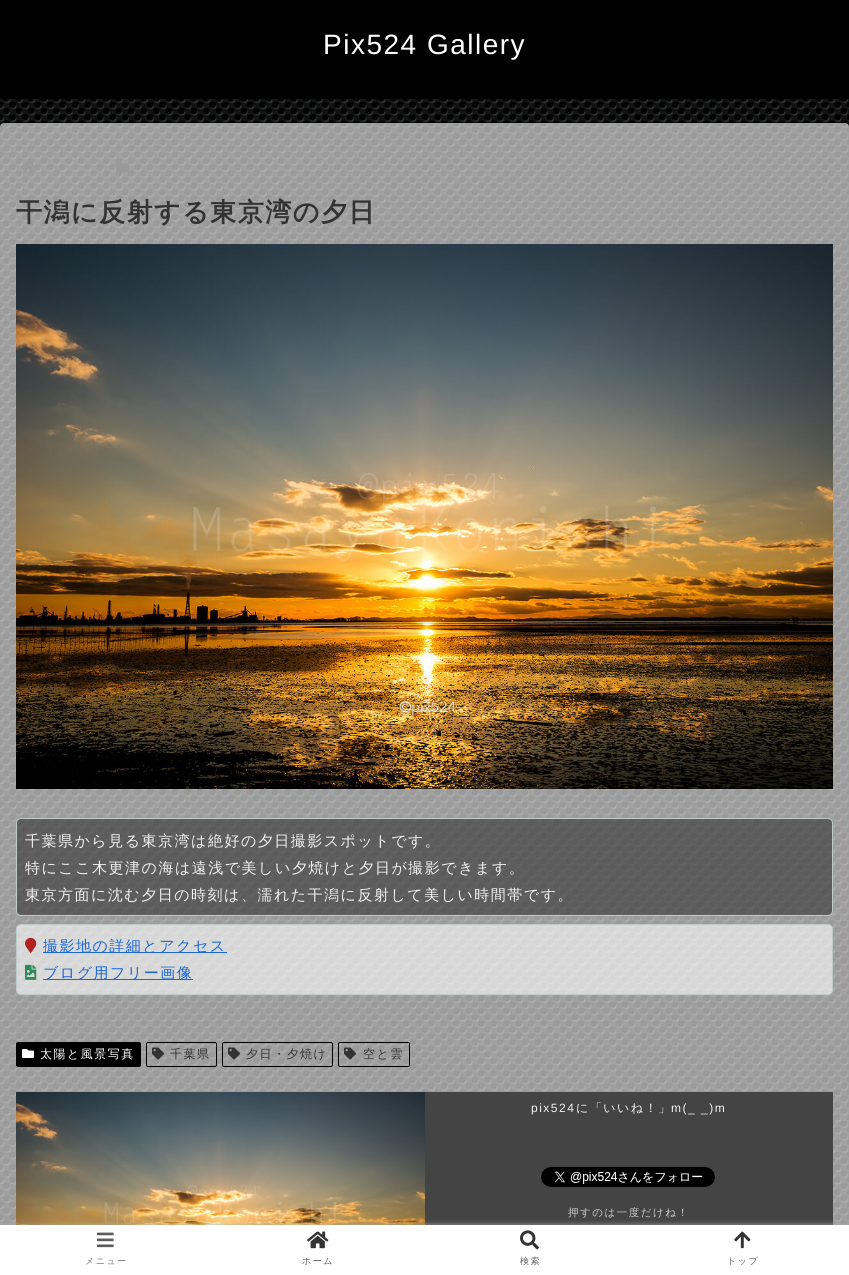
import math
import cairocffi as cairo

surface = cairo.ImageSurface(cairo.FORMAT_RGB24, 849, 1275)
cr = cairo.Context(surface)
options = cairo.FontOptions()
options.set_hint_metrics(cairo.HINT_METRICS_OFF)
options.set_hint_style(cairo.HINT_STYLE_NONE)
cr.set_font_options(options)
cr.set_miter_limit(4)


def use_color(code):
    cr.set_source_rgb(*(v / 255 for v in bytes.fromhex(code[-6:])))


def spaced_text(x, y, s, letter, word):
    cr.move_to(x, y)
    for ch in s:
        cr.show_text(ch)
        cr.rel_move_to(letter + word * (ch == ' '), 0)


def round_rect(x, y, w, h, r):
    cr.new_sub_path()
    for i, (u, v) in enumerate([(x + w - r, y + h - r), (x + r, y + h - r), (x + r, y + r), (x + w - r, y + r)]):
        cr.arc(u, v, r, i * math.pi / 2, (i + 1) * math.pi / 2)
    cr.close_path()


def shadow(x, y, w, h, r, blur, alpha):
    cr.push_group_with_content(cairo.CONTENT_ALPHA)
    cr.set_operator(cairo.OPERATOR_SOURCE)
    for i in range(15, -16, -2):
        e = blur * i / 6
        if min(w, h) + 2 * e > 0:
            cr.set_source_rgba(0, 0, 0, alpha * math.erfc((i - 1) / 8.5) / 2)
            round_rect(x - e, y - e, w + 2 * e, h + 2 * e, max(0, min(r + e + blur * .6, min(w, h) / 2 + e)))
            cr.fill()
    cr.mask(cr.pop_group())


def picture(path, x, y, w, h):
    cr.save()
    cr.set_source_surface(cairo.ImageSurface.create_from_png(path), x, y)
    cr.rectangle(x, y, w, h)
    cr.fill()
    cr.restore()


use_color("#ffffff")
cr.paint()
picture("img1.png", 0, 99, 849, 1126)
use_color("#000000")
cr.rectangle(0, 0, 849, 99)
cr.fill()
cr.select_font_face("Liberation Sans")
cr.set_font_size(28)
use_color("#ffffff")
spaced_text(323, 54, "Pix524 Gallery", 1.5, 0)
picture("img2.png", 21, 162, 13, 11)
picture("img3.png", 99, 163, 5, 8)
picture("img4.png", 116, 162, 13, 10)
cr.select_font_face("WenQuanYi Zen Hei", cairo.FONT_SLANT_NORMAL, cairo.FONT_WEIGHT_BOLD)
cr.set_font_size(26)
use_color("#333333")
spaced_text(16, 221, "干潟に反射する東京湾の夕日", 1.5, 0)
picture("img5.png", 16, 244, 817, 545)
cr.set_source_rgba(0.2, 0.2, 0.2, 0.6)
round_rect(16.5, 818.5, 816, 97, 4.5)
cr.fill_preserve()
use_color("#bdcbcb")
cr.set_line_width(1)
cr.stroke()
cr.select_font_face("WenQuanYi Zen Hei Medium")
cr.set_font_size(15)
use_color("#f2f2f2")
spaced_text(25, 846, "千葉県から見る東京湾は絶好の夕日撮影スポットです。", 1.5, 0)
spaced_text(25, 873, "特にここ木更津の海は遠浅で美しい夕焼けと夕日が撮影できます。", 1.5, 0)
spaced_text(25, 900, "東京方面に沈む夕日の時刻は、濡れた干潟に反射して美しい時間帯です。", 1.5, 0)
cr.set_source_rgba(1, 1, 1, 0.6)
round_rect(16.5, 924.5, 816, 70, 4.5)
cr.fill_preserve()
use_color("#bdcbcb")
cr.stroke()
picture("img6.png", 25, 937, 12, 16)
use_color("#1967d2")
cr.rectangle(43, 952, 184, 1)
cr.fill()
spaced_text(43, 951, "撮影地の詳細とアクセス", 1.5, 0)
picture("img7.png", 25, 964, 12, 16)
cr.rectangle(43, 979, 150, 1)
cr.fill()
spaced_text(43, 978, "ブログ用フリー画像", 1.5, 0)
use_color("#000000")
round_rect(16, 1042, 125, 25, 2)
cr.fill()
picture("img8.png", 22, 1049, 12, 9)
cr.set_font_size(12)
use_color("#ffffff")
spaced_text(40, 1058, "太陽と風景写真", 1.5, 0)
round_rect(146.5, 1042.5, 70, 24, 1.5)
use_color("#000000")
cr.stroke()
picture("img9.png", 152, 1047, 12, 13)
use_color("#333333")
spaced_text(170, 1058, "千葉県", 1.5, 0)
round_rect(222.5, 1042.5, 110, 24, 1.5)
use_color("#000000")
cr.stroke()
picture("img10.png", 228, 1047, 12, 13)
use_color("#333333")
spaced_text(246, 1058, "夕日・夕焼け", 1.5, 0)
round_rect(338.5, 1042.5, 71, 24, 1.5)
use_color("#000000")
cr.stroke()
picture("img11.png", 344, 1047, 12, 13)
use_color("#333333")
spaced_text(363, 1058, "空と雲", 1.5, 0)
use_color("#444444")
cr.rectangle(425, 1092, 408, 133)
cr.fill()
picture("img12.png", 16, 1092, 409, 133)
cr.select_font_face("Liberation Sans")
use_color("#f2f2f2")
spaced_text(531, 1112, "pix524", 1.5, 0)
cr.select_font_face("WenQuanYi Zen Hei Medium")
spaced_text(576, 1112, "に「いいね！」", 1.5, 0)
cr.select_font_face("Liberation Sans")
spaced_text(671, 1112, "m(_ _)m", 1.5, 0)
picture("img13.png", 541, 1167, 174, 20)
cr.select_font_face("WenQuanYi Zen Hei Medium")
cr.set_font_size(10.5)
use_color("#cccccc")
spaced_text(568, 1216, "押すのは一度だけね！", 1.5, 0)
use_color("#a9a9a9")
shadow(0, 1225, 849, 50, 0, 2.5, 1)
use_color("#ffffff")
cr.rectangle(0, 1225, 849, 50)
cr.fill()
picture("img14.png", 97, 1232, 17, 16)
cr.set_font_size(9)
use_color("#7c7c7c")
spaced_text(85, 1264, "メニュー", 1.5, 0)
picture("img15.png", 307, 1231, 22, 18)
use_color("#5c5c5c")
spaced_text(302, 1264, "ホーム", 1.5, 0)
picture("img16.png", 520, 1230, 19, 20)
spaced_text(520, 1264, "検索", 1.5, 0)
picture("img17.png", 734, 1231, 17, 18)
spaced_text(727, 1264, "トップ", 1.5, 0)
surface.write_to_png("result.png")
